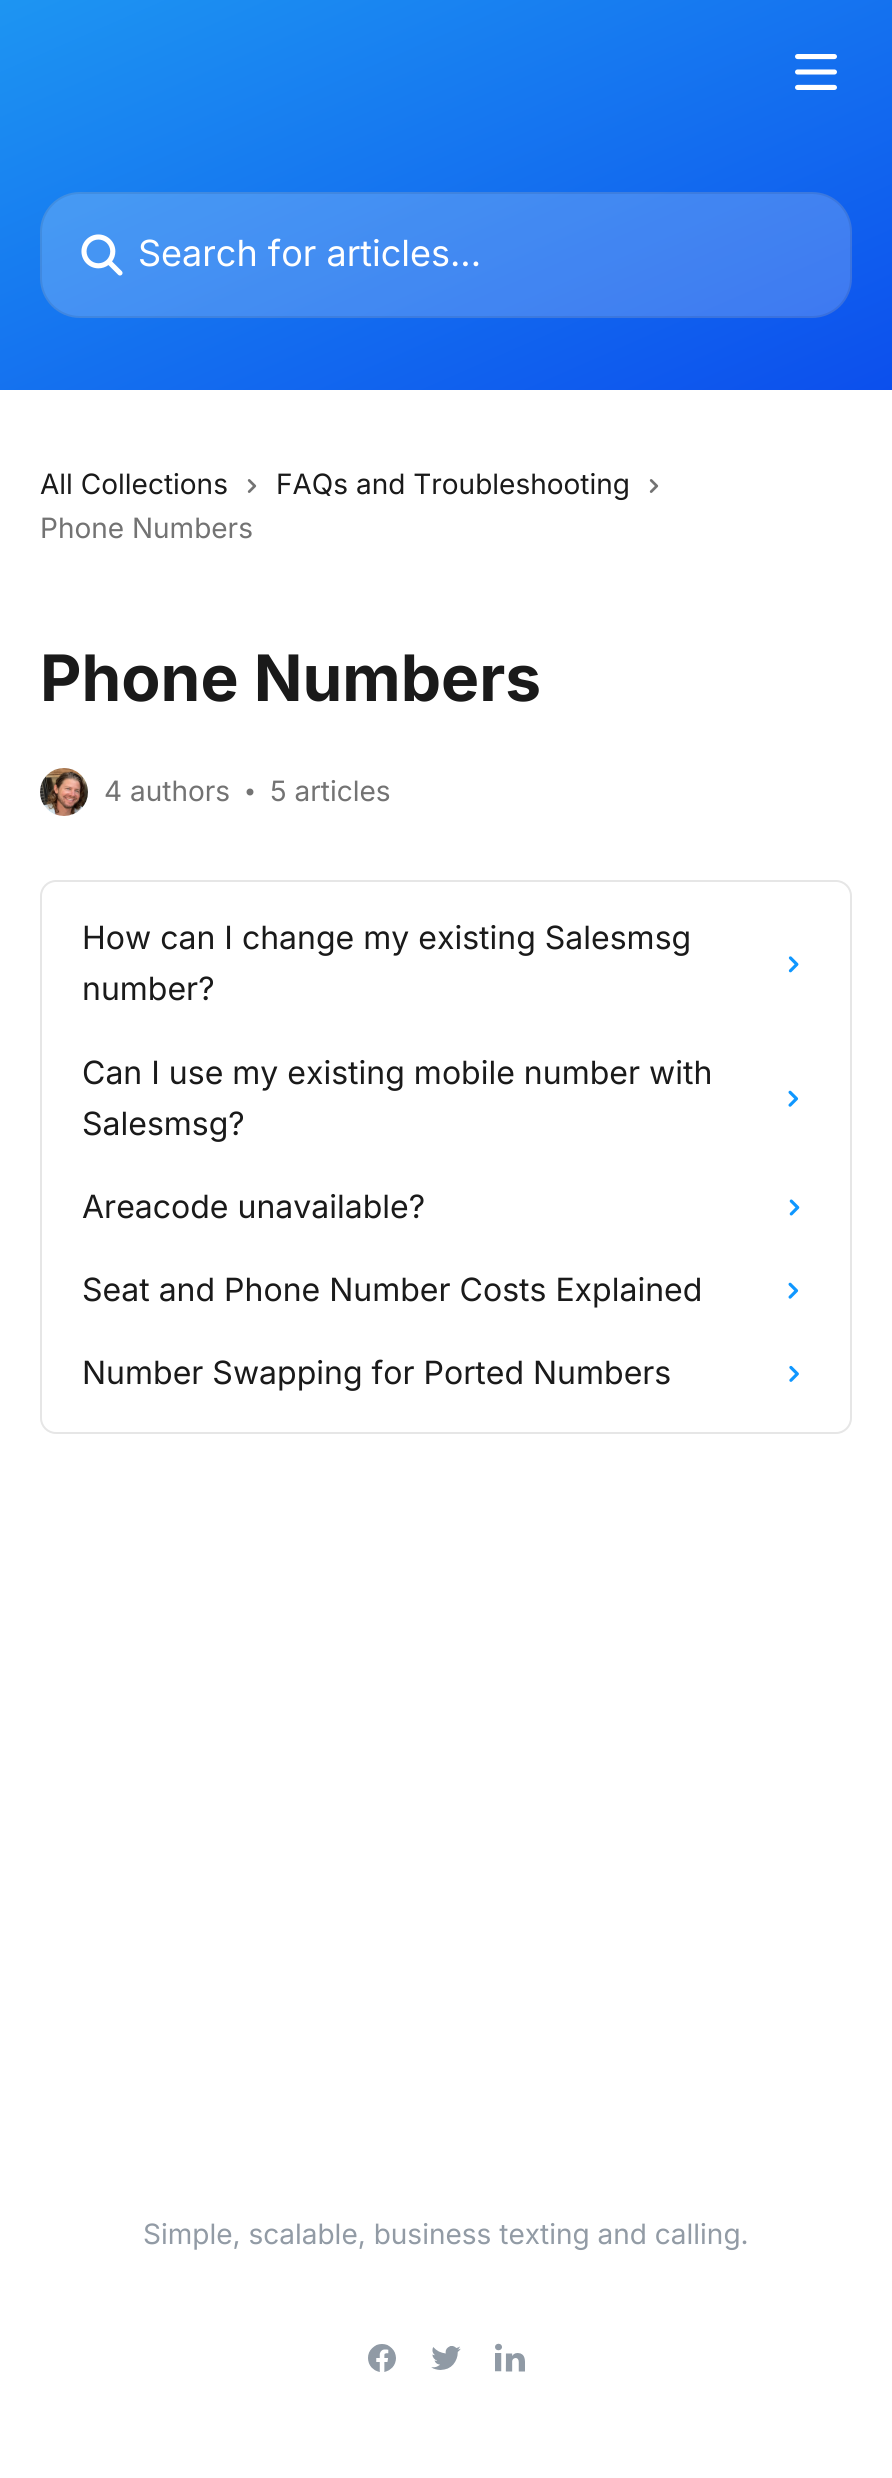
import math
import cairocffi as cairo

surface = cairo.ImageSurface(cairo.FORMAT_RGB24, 892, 2478)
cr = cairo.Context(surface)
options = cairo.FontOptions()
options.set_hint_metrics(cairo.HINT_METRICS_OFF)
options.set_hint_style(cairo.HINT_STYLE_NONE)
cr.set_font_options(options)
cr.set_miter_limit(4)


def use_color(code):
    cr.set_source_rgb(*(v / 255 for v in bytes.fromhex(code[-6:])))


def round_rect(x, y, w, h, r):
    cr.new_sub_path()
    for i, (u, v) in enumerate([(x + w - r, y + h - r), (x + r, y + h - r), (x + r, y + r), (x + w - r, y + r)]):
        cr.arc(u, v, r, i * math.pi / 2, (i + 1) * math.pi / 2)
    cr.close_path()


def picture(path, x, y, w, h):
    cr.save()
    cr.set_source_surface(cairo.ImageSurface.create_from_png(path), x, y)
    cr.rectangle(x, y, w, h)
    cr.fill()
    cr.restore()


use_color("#ffffff")
cr.paint()
gradient = cairo.LinearGradient(303, -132, 589, 522)
gradient.add_color_stop_rgba(0, 0.114, 0.584, 0.949, 1)
gradient.add_color_stop_rgba(1, 0.047, 0.31, 0.929, 1)
cr.set_source(gradient)
cr.rectangle(0, 0, 892, 390)
cr.fill()
picture("img1.png", 795, 54, 42, 36)
cr.set_source_rgba(1, 1, 1, 0.2)
round_rect(40, 192, 812, 126, 40)
cr.fill()
round_rect(41, 193, 810, 124, 39)
cr.set_source_rgba(0, 0, 0, 0.08)
cr.stroke()
picture("img2.png", 81, 234, 42, 42)
cr.select_font_face("Inter")
cr.set_font_size(36)
use_color("#ffffff")
cr.move_to(138, 266)
cr.show_text("Search for articles...")
cr.set_font_size(28)
use_color("#1a1a1a")
cr.move_to(40, 494)
cr.show_text("All Collections")
picture("img3.png", 247, 479, 10, 14)
cr.move_to(276, 494)
cr.show_text("FAQs and Troubleshooting")
picture("img3.png", 649, 479, 10, 14)
use_color("#737373")
cr.move_to(40, 538)
cr.show_text("Phone Numbers")
cr.select_font_face("Inter", cairo.FONT_SLANT_NORMAL, cairo.FONT_WEIGHT_BOLD)
cr.set_font_size(64)
use_color("#1a1a1a")
cr.move_to(40, 701)
cr.show_text("Phone Numbers")
picture("img4.png", 40, 768, 48, 48)
cr.select_font_face("Inter")
cr.set_font_size(28)
use_color("#737373")
cr.move_to(104, 801)
cr.show_text("4 authors")
picture("img5.png", 246, 788, 8, 8)
cr.move_to(270, 801)
cr.show_text("5 articles")
round_rect(41, 881, 810, 552, 15)
use_color("#e6e6e6")
cr.stroke()
cr.set_font_size(32)
use_color("#1a1a1a")
cr.move_to(82, 949)
cr.show_text("How can I change my existing Salesmsg")
cr.move_to(82, 1000)
cr.show_text("number?")
picture("img6.png", 788, 956, 11, 17)
cr.move_to(82, 1084)
cr.show_text("Can I use my existing mobile number with")
cr.move_to(82, 1135)
cr.show_text("Salesmsg?")
picture("img7.png", 788, 1090, 11, 17)
cr.move_to(82, 1218)
cr.show_text("Areacode unavailable?")
picture("img8.png", 789, 1199, 11, 17)
cr.move_to(82, 1301)
cr.show_text("Seat and Phone Number Costs Explained")
picture("img9.png", 788, 1282, 11, 17)
cr.move_to(82, 1384)
cr.show_text("Number Swapping for Ported Numbers")
picture("img10.png", 789, 1365, 10, 17)
cr.set_font_size(28)
use_color("#929ba5")
cr.move_to(143, 2244)
cr.show_text("Simple, scalable, business texting and calling.")
picture("img11.png", 368, 2344, 28, 28)
picture("img12.png", 431, 2346, 30, 24)
picture("img13.png", 495, 2343, 30, 29)
surface.write_to_png("result.png")
